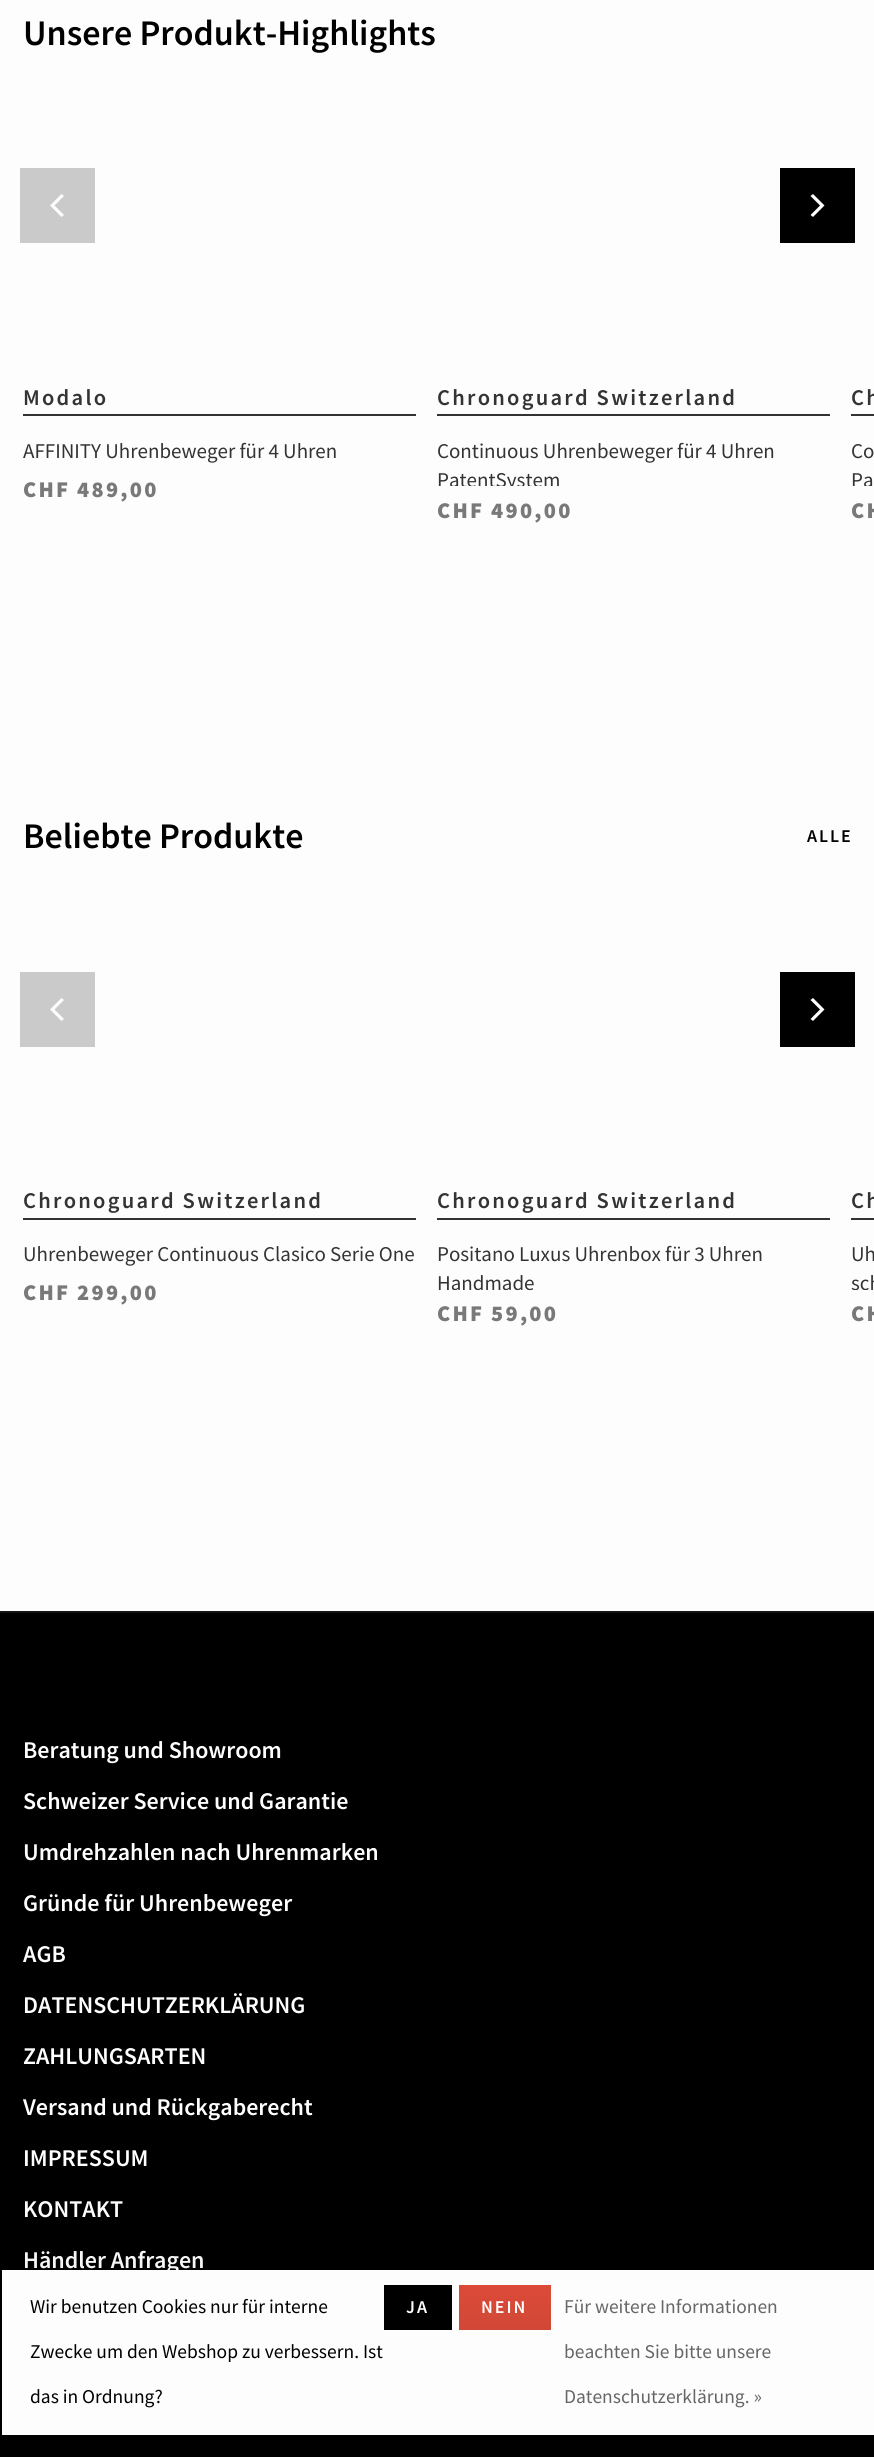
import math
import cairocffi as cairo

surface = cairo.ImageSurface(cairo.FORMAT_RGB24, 874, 2457)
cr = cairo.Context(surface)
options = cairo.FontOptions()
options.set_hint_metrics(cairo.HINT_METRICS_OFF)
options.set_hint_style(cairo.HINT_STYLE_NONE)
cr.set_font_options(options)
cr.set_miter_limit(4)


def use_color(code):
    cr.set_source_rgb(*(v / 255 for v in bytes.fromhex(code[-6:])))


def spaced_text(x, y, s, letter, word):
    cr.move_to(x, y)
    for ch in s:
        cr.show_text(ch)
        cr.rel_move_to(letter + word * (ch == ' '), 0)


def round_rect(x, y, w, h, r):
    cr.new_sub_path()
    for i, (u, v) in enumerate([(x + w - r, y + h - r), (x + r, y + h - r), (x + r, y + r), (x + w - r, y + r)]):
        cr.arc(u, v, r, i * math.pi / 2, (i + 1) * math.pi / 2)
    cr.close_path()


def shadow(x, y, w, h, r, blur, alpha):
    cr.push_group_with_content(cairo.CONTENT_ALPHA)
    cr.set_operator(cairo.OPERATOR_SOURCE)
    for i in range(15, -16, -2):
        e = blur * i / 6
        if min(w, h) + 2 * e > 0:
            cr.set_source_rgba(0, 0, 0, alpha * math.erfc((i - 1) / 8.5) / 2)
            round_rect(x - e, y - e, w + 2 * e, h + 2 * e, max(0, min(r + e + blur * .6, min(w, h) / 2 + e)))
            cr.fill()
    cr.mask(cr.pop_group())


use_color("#fdfdfd")
cr.paint()
cr.select_font_face("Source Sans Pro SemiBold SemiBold")
cr.set_font_size(36)
use_color("#000000")
cr.move_to(23, 45)
cr.show_text("Unsere Produkt-Highlights")
use_color("#cacaca")
cr.rectangle(20, 168, 75, 75)
cr.fill()
use_color("#fdfdfd")
cr.new_path()
cr.move_to(61.5, 217)
cr.line_to(50, 205.5)
cr.line_to(61.5, 194)
cr.line_to(64, 196)
cr.line_to(54.5, 205.5)
cr.line_to(64, 215)
cr.close_path()
cr.fill()
use_color("#000000")
cr.rectangle(780, 168, 75, 75)
cr.fill()
use_color("#ffffff")
cr.new_path()
cr.move_to(813, 217)
cr.line_to(810.5, 215)
cr.line_to(820, 205.5)
cr.line_to(810.5, 196)
cr.line_to(813, 194)
cr.line_to(824.5, 205.5)
cr.close_path()
cr.fill()
cr.set_font_size(22.5)
use_color("#333333")
spaced_text(23, 405, "Modalo", 2.25, 0)
cr.rectangle(23, 414, 393, 2)
cr.fill()
cr.select_font_face("Source Sans Pro")
cr.set_font_size(21)
cr.move_to(23, 458)
cr.show_text("AFFINITY Uhrenbeweger für 4 Uhren")
cr.select_font_face("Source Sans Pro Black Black")
cr.set_font_size(22.5)
use_color("#797979")
spaced_text(23, 497, "CHF 489,00", 2.25, 0)
cr.select_font_face("Source Sans Pro SemiBold SemiBold")
use_color("#333333")
spaced_text(437, 405, "Chronoguard Switzerland", 2.25, 0)
cr.rectangle(437, 414, 393, 2)
cr.fill()
cr.select_font_face("Source Sans Pro")
cr.set_font_size(21)
cr.move_to(437, 458)
cr.show_text("Continuous Uhrenbeweger für 4 Uhren")
cr.save()
cr.rectangle(437, 416, 393, 70)
cr.clip()
cr.move_to(437, 487)
cr.show_text("PatentSystem")
cr.restore()
cr.select_font_face("Source Sans Pro Black Black")
cr.set_font_size(22.5)
use_color("#797979")
spaced_text(437, 518, "CHF 490,00", 2.25, 0)
cr.select_font_face("Source Sans Pro SemiBold SemiBold")
use_color("#333333")
spaced_text(851, 405, "Ch", 2.25, 0)
cr.rectangle(851, 414, 23, 2)
cr.fill()
cr.select_font_face("Source Sans Pro")
cr.set_font_size(21)
cr.move_to(851, 458)
cr.show_text("Co")
cr.save()
cr.rectangle(851, 416, 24, 70)
cr.clip()
cr.move_to(851, 487)
cr.show_text("Pa")
cr.restore()
cr.select_font_face("Source Sans Pro Black Black")
cr.set_font_size(22.5)
use_color("#797979")
spaced_text(851, 518, "CH", 2.25, 0)
cr.select_font_face("Source Sans Pro SemiBold SemiBold")
cr.set_font_size(36)
use_color("#000000")
cr.move_to(23, 848)
cr.show_text("Beliebte Produkte")
cr.set_font_size(18)
spaced_text(807, 842, "ALLE", 2, 0)
use_color("#cacaca")
cr.rectangle(20, 972, 75, 75)
cr.fill()
use_color("#fdfdfd")
cr.new_path()
cr.move_to(61.5, 1021)
cr.line_to(50, 1009.5)
cr.line_to(61.5, 998)
cr.line_to(64, 1000)
cr.line_to(54.5, 1009.5)
cr.line_to(64, 1019)
cr.close_path()
cr.fill()
use_color("#000000")
cr.rectangle(780, 972, 75, 75)
cr.fill()
use_color("#ffffff")
cr.new_path()
cr.move_to(813, 1021)
cr.line_to(810.5, 1019)
cr.line_to(820, 1009.5)
cr.line_to(810.5, 1000)
cr.line_to(813, 998)
cr.line_to(824.5, 1009.5)
cr.close_path()
cr.fill()
cr.set_font_size(22.5)
use_color("#333333")
spaced_text(23, 1208, "Chronoguard Switzerland", 2.25, 0)
cr.rectangle(23, 1218, 393, 2)
cr.fill()
cr.select_font_face("Source Sans Pro")
cr.set_font_size(21)
cr.move_to(23, 1261)
cr.show_text("Uhrenbeweger Continuous Clasico Serie One")
cr.select_font_face("Source Sans Pro Black Black")
cr.set_font_size(22.5)
use_color("#797979")
spaced_text(23, 1300, "CHF 299,00", 2.25, 0)
cr.select_font_face("Source Sans Pro SemiBold SemiBold")
use_color("#333333")
spaced_text(437, 1208, "Chronoguard Switzerland", 2.25, 0)
cr.rectangle(437, 1218, 393, 2)
cr.fill()
cr.select_font_face("Source Sans Pro")
cr.set_font_size(21)
cr.move_to(437, 1261)
cr.show_text("Positano Luxus Uhrenbox für 3 Uhren")
cr.save()
cr.rectangle(437, 1220, 393, 70)
cr.clip()
cr.move_to(437, 1290)
cr.show_text("Handmade")
cr.restore()
cr.select_font_face("Source Sans Pro Black Black")
cr.set_font_size(22.5)
use_color("#797979")
spaced_text(437, 1321, "CHF 59,00", 2.25, 0)
cr.select_font_face("Source Sans Pro SemiBold SemiBold")
use_color("#333333")
spaced_text(851, 1208, "Ch", 2.25, 0)
cr.rectangle(851, 1218, 23, 2)
cr.fill()
cr.select_font_face("Source Sans Pro")
cr.set_font_size(21)
cr.move_to(851, 1261)
cr.show_text("Uh")
cr.save()
cr.rectangle(851, 1220, 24, 70)
cr.clip()
cr.move_to(851, 1290)
cr.show_text("sch")
cr.restore()
cr.select_font_face("Source Sans Pro Black Black")
cr.set_font_size(22.5)
use_color("#797979")
spaced_text(851, 1321, "CH", 2.25, 0)
use_color("#000000")
cr.rectangle(0, 1613, 874, 844)
cr.fill()
use_color("#141414")
cr.rectangle(0, 1611, 874, 2)
cr.fill()
cr.select_font_face("Source Sans Pro SemiBold SemiBold")
cr.set_font_size(24)
use_color("#ffffff")
cr.move_to(23, 1758)
cr.show_text("Beratung und Showroom")
cr.move_to(23, 1809)
cr.show_text("Schweizer Service und Garantie")
cr.move_to(23, 1860)
cr.show_text("Umdrehzahlen nach Uhrenmarken")
cr.move_to(23, 1911)
cr.show_text("Gründe für Uhrenbeweger")
cr.move_to(23, 1962)
cr.show_text("AGB")
cr.move_to(23, 2013)
cr.show_text("DATENSCHUTZERKLÄRUNG")
cr.move_to(23, 2064)
cr.show_text("ZAHLUNGSARTEN")
cr.move_to(23, 2115)
cr.show_text("Versand und Rückgaberecht")
cr.move_to(23, 2166)
cr.show_text("IMPRESSUM")
cr.move_to(23, 2217)
cr.show_text("KONTAKT")
cr.move_to(23, 2268)
cr.show_text("Händler Anfragen")
cr.save()
cr.set_fill_rule(cairo.FILL_RULE_EVEN_ODD)
cr.new_path()
cr.move_to(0, 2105)
cr.line_to(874, 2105)
cr.line_to(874, 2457)
cr.line_to(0, 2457)
cr.close_path()
cr.move_to(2, 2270)
cr.line_to(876, 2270)
cr.line_to(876, 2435)
cr.line_to(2, 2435)
cr.close_path()
cr.clip()
use_color("#000000")
shadow(11, 2300, 856, 147, 0, 64.5, 0.15)
cr.restore()
use_color("#fdfdfd")
cr.rectangle(2, 2270, 872, 165)
cr.fill()
cr.select_font_face("Source Sans Pro")
cr.set_font_size(19.5)
use_color("#000000")
cr.move_to(30, 2313)
cr.show_text("Wir benutzen Cookies nur für interne")
cr.rectangle(384, 2285, 68, 45)
cr.fill()
cr.select_font_face("Source Sans Pro SemiBold SemiBold")
cr.set_font_size(18)
use_color("#ffffff")
spaced_text(406, 2313, "JA", 2, 0)
gradient = cairo.LinearGradient(504, 2285, 504, 2330)
gradient.add_color_stop_rgba(0, 0.863, 0.29, 0.22, 1)
gradient.add_color_stop_rgba(1, 0.82, 0.282, 0.212, 1)
cr.set_source(gradient)
cr.rectangle(459, 2285, 92, 45)
cr.fill()
use_color("#ffffff")
spaced_text(481, 2313, "NEIN", 2, 0)
cr.select_font_face("Source Sans Pro")
cr.set_font_size(19.5)
use_color("#666666")
cr.move_to(564, 2313)
cr.show_text("Für weitere Informationen")
cr.move_to(564, 2358)
cr.show_text("beachten Sie bitte unsere")
cr.move_to(564, 2403)
cr.show_text("Datenschutzerklärung. »")
use_color("#000000")
cr.move_to(30, 2358)
cr.show_text("Zwecke um den Webshop zu verbessern. Ist")
cr.move_to(30, 2403)
cr.show_text("das in Ordnung?")
surface.write_to_png("result.png")
